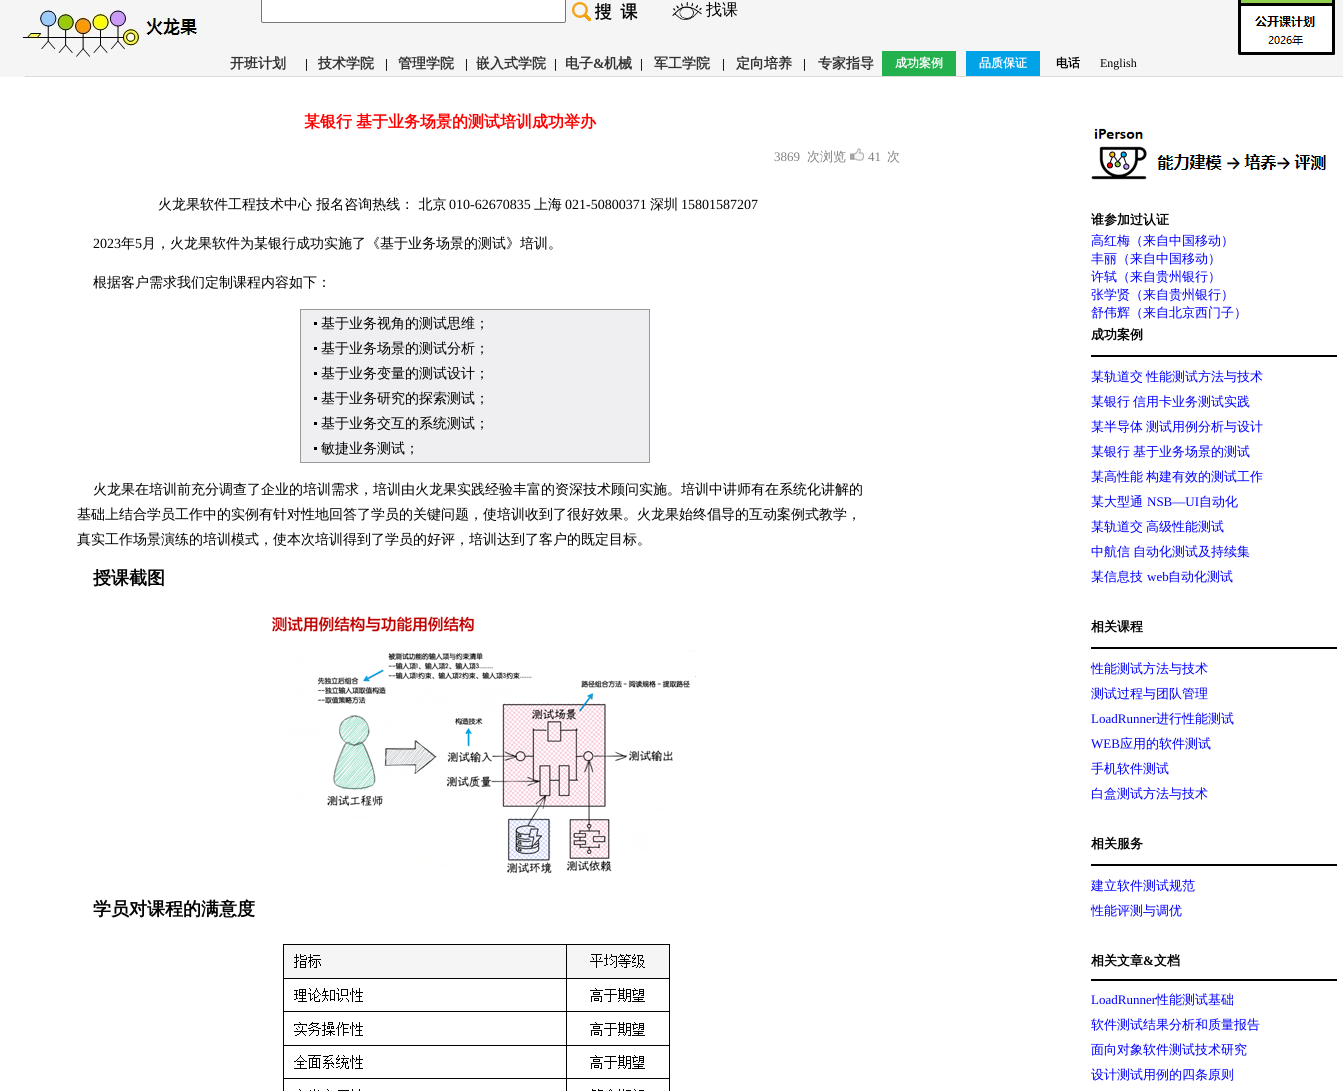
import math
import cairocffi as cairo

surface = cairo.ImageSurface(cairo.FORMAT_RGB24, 1343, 1091)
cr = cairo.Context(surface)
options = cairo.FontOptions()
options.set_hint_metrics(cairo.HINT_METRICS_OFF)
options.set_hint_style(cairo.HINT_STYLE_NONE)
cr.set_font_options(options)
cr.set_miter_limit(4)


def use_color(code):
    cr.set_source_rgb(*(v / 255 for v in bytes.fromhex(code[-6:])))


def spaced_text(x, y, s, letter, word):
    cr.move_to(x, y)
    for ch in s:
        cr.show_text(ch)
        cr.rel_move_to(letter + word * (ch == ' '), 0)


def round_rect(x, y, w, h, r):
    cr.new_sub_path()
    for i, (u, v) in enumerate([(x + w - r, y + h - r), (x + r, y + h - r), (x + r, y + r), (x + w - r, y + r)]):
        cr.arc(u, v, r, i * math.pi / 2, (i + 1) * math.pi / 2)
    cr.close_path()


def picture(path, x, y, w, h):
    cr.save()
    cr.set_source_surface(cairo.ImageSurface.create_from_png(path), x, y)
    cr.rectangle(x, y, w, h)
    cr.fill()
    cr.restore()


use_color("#ffffff")
cr.paint()
use_color("#f5f5f5")
cr.rectangle(0, 0, 1343, 76)
cr.fill()
picture("img1.png", 20, 4, 185, 56)
use_color("#ffffff")
round_rect(261.5, -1.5, 304, 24, 1.5)
cr.fill_preserve()
use_color("#767676")
cr.set_line_width(1)
cr.stroke()
picture("img2.png", 572, 2, 66, 19)
picture("img3.png", 672, 2, 30, 18)
cr.select_font_face("WenQuanYi Zen Hei Medium")
cr.set_font_size(16)
use_color("#000000")
cr.move_to(706, 15)
cr.show_text("找课")
cr.select_font_face("WenQuanYi Zen Hei", cairo.FONT_SLANT_NORMAL, cairo.FONT_WEIGHT_BOLD)
cr.set_font_size(14)
use_color("#333333")
cr.move_to(230, 68)
cr.show_text("开班计划")
cr.select_font_face("Liberation Serif", cairo.FONT_SLANT_NORMAL, cairo.FONT_WEIGHT_BOLD)
cr.set_font_size(13)
use_color("#000000")
cr.move_to(305, 68)
cr.show_text("|")
cr.select_font_face("WenQuanYi Zen Hei", cairo.FONT_SLANT_NORMAL, cairo.FONT_WEIGHT_BOLD)
cr.set_font_size(14)
use_color("#333333")
cr.move_to(318, 68)
cr.show_text("技术学院")
cr.select_font_face("Liberation Serif", cairo.FONT_SLANT_NORMAL, cairo.FONT_WEIGHT_BOLD)
cr.set_font_size(13)
use_color("#000000")
cr.move_to(385, 68)
cr.show_text("|")
cr.select_font_face("WenQuanYi Zen Hei", cairo.FONT_SLANT_NORMAL, cairo.FONT_WEIGHT_BOLD)
cr.set_font_size(14)
use_color("#333333")
cr.move_to(398, 68)
cr.show_text("管理学院")
cr.select_font_face("Liberation Serif", cairo.FONT_SLANT_NORMAL, cairo.FONT_WEIGHT_BOLD)
cr.set_font_size(13)
use_color("#000000")
cr.move_to(465, 68)
cr.show_text("|")
cr.select_font_face("WenQuanYi Zen Hei", cairo.FONT_SLANT_NORMAL, cairo.FONT_WEIGHT_BOLD)
cr.set_font_size(14)
use_color("#333333")
cr.move_to(476, 68)
cr.show_text("嵌入式学院")
cr.select_font_face("Liberation Serif", cairo.FONT_SLANT_NORMAL, cairo.FONT_WEIGHT_BOLD)
cr.set_font_size(13)
use_color("#000000")
cr.move_to(554, 68)
cr.show_text("|")
cr.select_font_face("WenQuanYi Zen Hei", cairo.FONT_SLANT_NORMAL, cairo.FONT_WEIGHT_BOLD)
cr.set_font_size(14)
use_color("#333333")
cr.move_to(565, 68)
cr.show_text("电子")
cr.select_font_face("Liberation Serif", cairo.FONT_SLANT_NORMAL, cairo.FONT_WEIGHT_BOLD)
cr.move_to(593, 68)
cr.show_text("&")
cr.select_font_face("WenQuanYi Zen Hei", cairo.FONT_SLANT_NORMAL, cairo.FONT_WEIGHT_BOLD)
cr.move_to(604, 68)
cr.show_text("机械")
cr.select_font_face("Liberation Serif", cairo.FONT_SLANT_NORMAL, cairo.FONT_WEIGHT_BOLD)
cr.set_font_size(13)
use_color("#000000")
cr.move_to(640, 68)
cr.show_text("|")
cr.select_font_face("WenQuanYi Zen Hei", cairo.FONT_SLANT_NORMAL, cairo.FONT_WEIGHT_BOLD)
cr.set_font_size(14)
use_color("#333333")
cr.move_to(654, 68)
cr.show_text("军工学院")
cr.select_font_face("Liberation Serif", cairo.FONT_SLANT_NORMAL, cairo.FONT_WEIGHT_BOLD)
cr.set_font_size(13)
use_color("#000000")
cr.move_to(722, 68)
cr.show_text("|")
cr.select_font_face("WenQuanYi Zen Hei", cairo.FONT_SLANT_NORMAL, cairo.FONT_WEIGHT_BOLD)
cr.set_font_size(14)
use_color("#333333")
cr.move_to(736, 68)
cr.show_text("定向培养")
cr.select_font_face("Liberation Serif", cairo.FONT_SLANT_NORMAL, cairo.FONT_WEIGHT_BOLD)
cr.set_font_size(13)
use_color("#000000")
cr.move_to(803, 68)
cr.show_text("|")
cr.select_font_face("WenQuanYi Zen Hei", cairo.FONT_SLANT_NORMAL, cairo.FONT_WEIGHT_BOLD)
cr.set_font_size(14)
use_color("#333333")
cr.move_to(818, 68)
cr.show_text("专家指导")
use_color("#22b14c")
cr.rectangle(882, 51, 74, 25)
cr.fill()
cr.set_font_size(12)
use_color("#ffffff")
cr.move_to(895, 67)
cr.show_text("成功案例")
use_color("#00a2e8")
cr.rectangle(966, 51, 74, 25)
cr.fill()
use_color("#ffffff")
cr.move_to(979, 67)
cr.show_text("品质保证")
use_color("#000000")
cr.move_to(1056, 67)
cr.show_text("电话")
cr.select_font_face("Liberation Serif")
cr.move_to(1100, 67)
cr.show_text("English")
picture("img4.png", 1238, 0, 97, 55)
use_color("#f5f5f5")
cr.rectangle(0, 76, 25, 1)
cr.fill()
use_color("#dcdcdc")
cr.rectangle(25, 76, 1318, 1)
cr.fill()
use_color("#cecece")
cr.rectangle(25, 76, 1, 1)
cr.fill()
cr.select_font_face("WenQuanYi Zen Hei", cairo.FONT_SLANT_NORMAL, cairo.FONT_WEIGHT_BOLD)
cr.set_font_size(16)
use_color("#ff0000")
cr.move_to(304, 127)
cr.show_text("某银行")
cr.move_to(356, 127)
cr.show_text("基于业务场景的测试培训成功举办")
cr.select_font_face("Liberation Serif")
cr.set_font_size(13)
use_color("#818183")
cr.move_to(774, 161)
cr.show_text("3869")
cr.select_font_face("WenQuanYi Zen Hei Medium")
cr.move_to(807, 161)
cr.show_text("次浏览")
picture("img5.png", 850, 148, 14, 13)
cr.select_font_face("Liberation Serif")
cr.move_to(868, 161)
cr.show_text("41")
cr.select_font_face("WenQuanYi Zen Hei Medium")
cr.move_to(887, 161)
cr.show_text("次")
cr.set_font_size(14)
use_color("#000000")
cr.move_to(158, 209)
cr.show_text("火龙果软件工程技术中心 报名咨询热线： 北京")
cr.select_font_face("Liberation Serif")
cr.move_to(449, 209)
cr.show_text("010-62670835")
cr.select_font_face("WenQuanYi Zen Hei Medium")
cr.move_to(534, 209)
cr.show_text("上海")
cr.select_font_face("Liberation Serif")
cr.move_to(565, 209)
cr.show_text("021-50800371")
cr.select_font_face("WenQuanYi Zen Hei Medium")
cr.move_to(650, 209)
cr.show_text("深圳")
cr.select_font_face("Liberation Serif")
cr.move_to(681, 209)
cr.show_text("15801587207")
cr.move_to(93, 248)
cr.show_text("2023")
cr.select_font_face("WenQuanYi Zen Hei Medium")
cr.move_to(121, 248)
cr.show_text("年")
cr.select_font_face("Liberation Serif")
cr.move_to(135, 248)
cr.show_text("5")
cr.select_font_face("WenQuanYi Zen Hei Medium")
cr.move_to(142, 248)
cr.show_text("月，火龙果软件为某银行成功实施了《基于业务场景的测试》培训。")
cr.move_to(93, 287)
cr.show_text("根据客户需求我们定制课程内容如下：")
use_color("#999999")
cr.rectangle(300, 309, 350, 154)
cr.fill()
use_color("#efeff1")
cr.rectangle(301, 310, 348, 152)
cr.fill()
use_color("#000000")
cr.rectangle(314, 322, 3, 3)
cr.fill()
cr.move_to(321, 328)
cr.show_text("基于业务视角的测试思维；")
cr.rectangle(314, 347, 3, 3)
cr.fill()
cr.move_to(321, 353)
cr.show_text("基于业务场景的测试分析；")
cr.rectangle(314, 372, 3, 3)
cr.fill()
cr.move_to(321, 378)
cr.show_text("基于业务变量的测试设计；")
cr.rectangle(314, 397, 3, 3)
cr.fill()
cr.move_to(321, 403)
cr.show_text("基于业务研究的探索测试；")
cr.rectangle(314, 422, 3, 3)
cr.fill()
cr.move_to(321, 428)
cr.show_text("基于业务交互的系统测试；")
cr.rectangle(314, 447, 3, 3)
cr.fill()
cr.move_to(321, 453)
cr.show_text("敏捷业务测试；")
cr.move_to(93, 494)
cr.show_text("火龙果在培训前充分调查了企业的培训需求，培训由火龙果实践经验丰富的资深技术顾问实施。培训中讲师有在系统化讲解的")
cr.move_to(77, 519)
cr.show_text("基础上结合学员工作中的实例有针对性地回答了学员的关键问题，使培训收到了很好效果。火龙果始终倡导的互动案例式教学，")
cr.move_to(77, 544)
cr.show_text("真实工作场景演练的培训模式，使本次培训得到了学员的好评，培训达到了客户的既定目标。")
cr.select_font_face("WenQuanYi Zen Hei", cairo.FONT_SLANT_NORMAL, cairo.FONT_WEIGHT_BOLD)
cr.set_font_size(18)
cr.move_to(93, 584)
cr.show_text("授课截图")
picture("img6.png", 272, 616, 430, 258)
cr.move_to(93, 915)
cr.show_text("学员对课程的满意度")
picture("img7.png", 283, 944, 387, 147)
picture("img8.png", 1091, 128, 235, 52)
cr.set_font_size(13)
cr.move_to(1091, 224)
cr.show_text("谁参加过认证")
cr.select_font_face("WenQuanYi Zen Hei Medium")
use_color("#0000ff")
cr.move_to(1091, 245)
cr.show_text("高红梅（来自中国移动）")
cr.move_to(1091, 263)
cr.show_text("丰丽（来自中国移动）")
cr.move_to(1091, 281)
cr.show_text("许轼（来自贵州银行）")
cr.move_to(1091, 299)
cr.show_text("张学贤（来自贵州银行）")
cr.move_to(1091, 317)
cr.show_text("舒伟辉（来自北京西门子）")
cr.select_font_face("WenQuanYi Zen Hei", cairo.FONT_SLANT_NORMAL, cairo.FONT_WEIGHT_BOLD)
use_color("#000000")
cr.move_to(1091, 339)
cr.show_text("成功案例")
cr.rectangle(1091, 355, 246, 2)
cr.fill()
cr.select_font_face("WenQuanYi Zen Hei Medium")
use_color("#0000ff")
spaced_text(1091, 381, "某轨道交 性能测试方法与技术", 0, -1)
spaced_text(1091, 406, "某银行 信用卡业务测试实践", 0, -1)
spaced_text(1091, 431, "某半导体 测试用例分析与设计", 0, -1)
spaced_text(1091, 456, "某银行 基于业务场景的测试", 0, -1)
spaced_text(1091, 481, "某高性能 构建有效的测试工作", 0, -1)
cr.move_to(1091, 506)
cr.show_text("某大型通")
cr.select_font_face("Liberation Serif")
cr.move_to(1147, 506)
cr.show_text("NSB—UI")
cr.select_font_face("WenQuanYi Zen Hei Medium")
cr.move_to(1199, 506)
cr.show_text("自动化")
spaced_text(1091, 531, "某轨道交 高级性能测试", 0, -1)
spaced_text(1091, 556, "中航信 自动化测试及持续集", 0, -1)
cr.move_to(1091, 581)
cr.show_text("某信息技")
cr.select_font_face("Liberation Serif")
cr.move_to(1147, 581)
cr.show_text("web")
cr.select_font_face("WenQuanYi Zen Hei Medium")
cr.move_to(1168, 581)
cr.show_text("自动化测试")
cr.select_font_face("WenQuanYi Zen Hei", cairo.FONT_SLANT_NORMAL, cairo.FONT_WEIGHT_BOLD)
use_color("#000000")
cr.move_to(1091, 631)
cr.show_text("相关课程")
cr.rectangle(1091, 647, 246, 2)
cr.fill()
cr.select_font_face("WenQuanYi Zen Hei Medium")
use_color("#0000ff")
cr.move_to(1091, 673)
cr.show_text("性能测试方法与技术")
cr.move_to(1091, 698)
cr.show_text("测试过程与团队管理")
cr.select_font_face("Liberation Serif")
cr.move_to(1091, 723)
cr.show_text("LoadRunner")
cr.select_font_face("WenQuanYi Zen Hei Medium")
cr.move_to(1156, 723)
cr.show_text("进行性能测试")
cr.select_font_face("Liberation Serif")
cr.move_to(1091, 748)
cr.show_text("WEB")
cr.select_font_face("WenQuanYi Zen Hei Medium")
cr.move_to(1120, 748)
cr.show_text("应用的软件测试")
cr.move_to(1091, 773)
cr.show_text("手机软件测试")
cr.move_to(1091, 798)
cr.show_text("白盒测试方法与技术")
cr.select_font_face("WenQuanYi Zen Hei", cairo.FONT_SLANT_NORMAL, cairo.FONT_WEIGHT_BOLD)
use_color("#000000")
cr.move_to(1091, 848)
cr.show_text("相关服务")
cr.rectangle(1091, 864, 246, 2)
cr.fill()
cr.select_font_face("WenQuanYi Zen Hei Medium")
use_color("#0000ff")
cr.move_to(1091, 890)
cr.show_text("建立软件测试规范")
cr.move_to(1091, 915)
cr.show_text("性能评测与调优")
cr.select_font_face("WenQuanYi Zen Hei", cairo.FONT_SLANT_NORMAL, cairo.FONT_WEIGHT_BOLD)
use_color("#000000")
cr.move_to(1091, 965)
cr.show_text("相关文章")
cr.select_font_face("Liberation Serif", cairo.FONT_SLANT_NORMAL, cairo.FONT_WEIGHT_BOLD)
cr.move_to(1143, 965)
cr.show_text("&")
cr.select_font_face("WenQuanYi Zen Hei", cairo.FONT_SLANT_NORMAL, cairo.FONT_WEIGHT_BOLD)
cr.move_to(1154, 965)
cr.show_text("文档")
cr.rectangle(1091, 979, 246, 2)
cr.fill()
cr.select_font_face("Liberation Serif")
use_color("#0000ff")
cr.move_to(1091, 1004)
cr.show_text("LoadRunner")
cr.select_font_face("WenQuanYi Zen Hei Medium")
cr.move_to(1156, 1004)
cr.show_text("性能测试基础")
cr.move_to(1091, 1029)
cr.show_text("软件测试结果分析和质量报告")
cr.move_to(1091, 1054)
cr.show_text("面向对象软件测试技术研究")
cr.move_to(1091, 1079)
cr.show_text("设计测试用例的四条原则")
surface.write_to_png("result.png")
